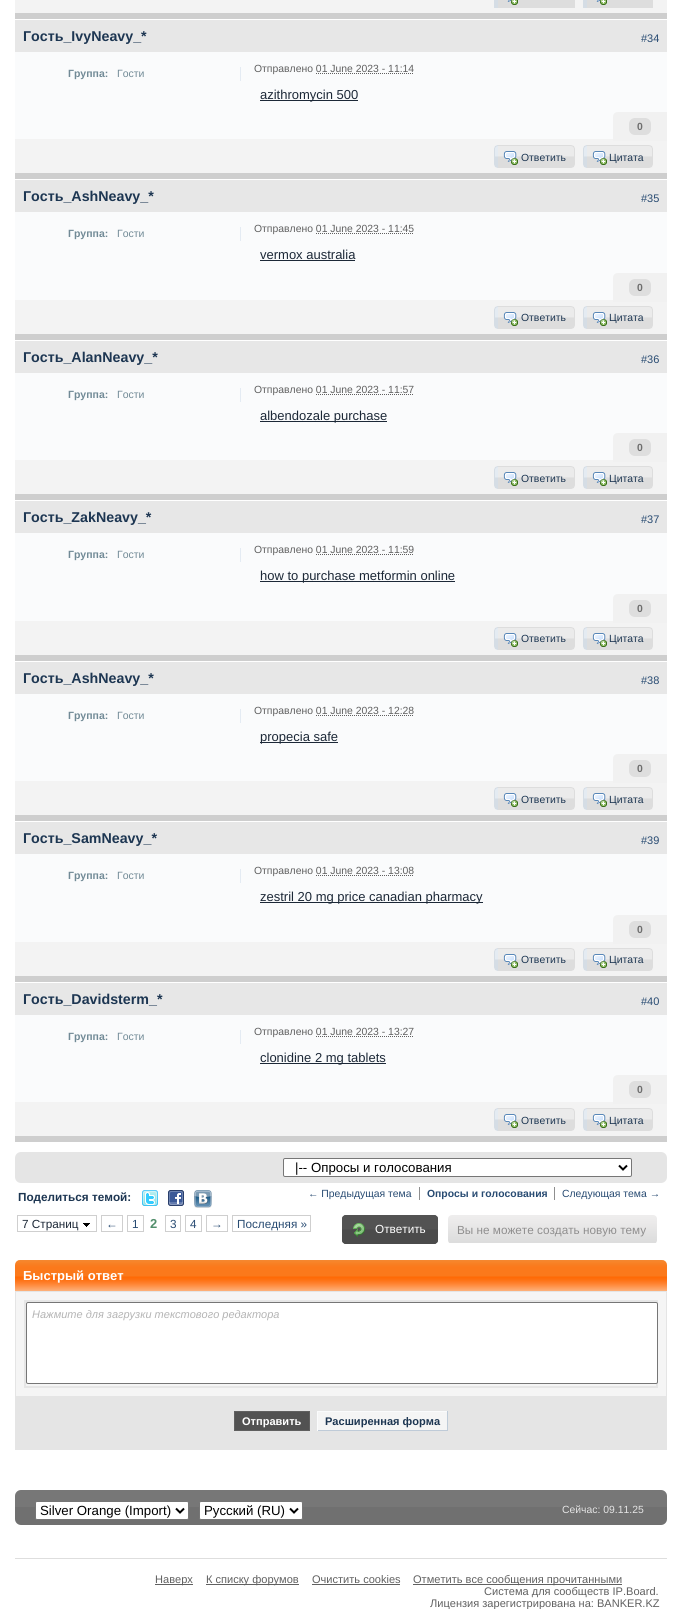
import math
import cairocffi as cairo

surface = cairo.ImageSurface(cairo.FORMAT_RGB24, 682, 1609)
cr = cairo.Context(surface)
options = cairo.FontOptions()
options.set_hint_metrics(cairo.HINT_METRICS_OFF)
options.set_hint_style(cairo.HINT_STYLE_NONE)
cr.set_font_options(options)
cr.set_miter_limit(4)


def use_color(code):
    cr.set_source_rgb(*(v / 255 for v in bytes.fromhex(code[-6:])))


def round_rect(x, y, w, h, r):
    cr.new_sub_path()
    for i, (u, v) in enumerate([(x + w - r, y + h - r), (x + r, y + h - r), (x + r, y + r), (x + w - r, y + r)]):
        cr.arc(u, v, r, i * math.pi / 2, (i + 1) * math.pi / 2)
    cr.close_path()


def picture(path, x, y, w, h):
    cr.save()
    cr.set_source_surface(cairo.ImageSurface.create_from_png(path), x, y)
    cr.rectangle(x, y, w, h)
    cr.fill()
    cr.restore()


use_color("#ffffff")
cr.paint()
use_color("#cecece")
cr.rectangle(15, 13, 652, 6)
cr.fill()
use_color("#f3f3f3")
cr.rectangle(15, 0, 652, 13)
cr.fill()
use_color("#d5dde5")
cr.rectangle(494, 0, 4, 8)
cr.fill()
use_color("#dddddd")
cr.rectangle(498, 0, 77, 8)
cr.fill()
picture("img1.png", 507, 0, 11, 5)
use_color("#d5dde5")
cr.rectangle(583, 0, 4, 8)
cr.fill()
use_color("#dddddd")
cr.rectangle(587, 0, 66, 8)
cr.fill()
picture("img1.png", 596, 0, 11, 5)
use_color("#fafbfc")
cr.rectangle(15, 52, 652, 87)
cr.fill()
use_color("#cecece")
cr.rectangle(15, 173, 652, 6)
cr.fill()
use_color("#e7e7e7")
cr.rectangle(15, 20, 652, 32)
cr.fill()
cr.select_font_face("Liberation Sans", cairo.FONT_SLANT_NORMAL, cairo.FONT_WEIGHT_BOLD)
cr.set_font_size(14.25)
use_color("#1d3652")
cr.move_to(23, 41)
cr.show_text("Гость_IvyNeavy_*")
cr.select_font_face("Liberation Sans")
cr.set_font_size(11)
use_color("#284b72")
cr.move_to(641, 42)
cr.show_text("#34")
use_color("#e4ebf3")
cr.rectangle(240, 67, 1, 14)
cr.fill()
cr.select_font_face("Liberation Sans", cairo.FONT_SLANT_NORMAL, cairo.FONT_WEIGHT_BOLD)
cr.set_font_size(10.5)
use_color("#718a96")
cr.move_to(68, 77)
cr.show_text("Группа:")
cr.select_font_face("Liberation Sans")
cr.move_to(117, 77)
cr.show_text("Гости")
cr.set_font_size(10.4)
use_color("#606060")
cr.move_to(254, 72)
cr.show_text("Отправлено 01 June 2023 - 11:14")
cr.new_path()
cr.move_to(316, 73.5)
cr.line_to(414, 73.5)
cr.set_line_width(1)
cr.set_dash([1, 1])
cr.stroke()
use_color("#1c2837")
cr.rectangle(260, 100, 98, 1)
cr.fill()
cr.set_font_size(13)
cr.move_to(260, 99)
cr.show_text("azithromycin 500")
use_color("#f3f3f3")
cr.rectangle(15, 139, 652, 34)
cr.fill()
use_color("#f1f1f1")
cr.new_path()
cr.move_to(618, 112)
cr.line_to(667, 112)
cr.line_to(667, 141)
cr.line_to(613, 141)
cr.line_to(613, 117)
cr.curve_to(613, 114, 615, 112, 618, 112)
cr.close_path()
cr.fill()
use_color("#dedede")
round_rect(629, 118, 22, 17, 6)
cr.fill()
cr.select_font_face("Liberation Sans", cairo.FONT_SLANT_NORMAL, cairo.FONT_WEIGHT_BOLD)
cr.set_font_size(10.4)
use_color("#6e6e6e")
cr.move_to(637, 130)
cr.show_text("0")
picture("img2.png", 494, 145, 4, 23)
picture("img3.png", 498, 145, 77, 23)
picture("img4.png", 503, 151, 15, 14)
cr.select_font_face("Liberation Sans")
use_color("#1d3652")
cr.move_to(521, 161)
cr.show_text("Ответить")
picture("img2.png", 583, 145, 4, 23)
picture("img5.png", 587, 145, 66, 23)
picture("img4.png", 592, 151, 15, 14)
cr.move_to(609, 161)
cr.show_text("Цитата")
use_color("#fafbfc")
cr.rectangle(15, 212, 652, 88)
cr.fill()
use_color("#cecece")
cr.rectangle(15, 334, 652, 6)
cr.fill()
use_color("#e7e7e7")
cr.rectangle(15, 180, 652, 32)
cr.fill()
cr.select_font_face("Liberation Sans", cairo.FONT_SLANT_NORMAL, cairo.FONT_WEIGHT_BOLD)
cr.set_font_size(14.25)
use_color("#1d3652")
cr.move_to(23, 201)
cr.show_text("Гость_AshNeavy_*")
cr.select_font_face("Liberation Sans")
cr.set_font_size(11)
use_color("#284b72")
cr.move_to(641, 202)
cr.show_text("#35")
use_color("#e4ebf3")
cr.rectangle(240, 227, 1, 14)
cr.fill()
cr.select_font_face("Liberation Sans", cairo.FONT_SLANT_NORMAL, cairo.FONT_WEIGHT_BOLD)
cr.set_font_size(10.5)
use_color("#718a96")
cr.move_to(68, 237)
cr.show_text("Группа:")
cr.select_font_face("Liberation Sans")
cr.move_to(117, 237)
cr.show_text("Гости")
cr.set_font_size(10.4)
use_color("#606060")
cr.move_to(254, 232)
cr.show_text("Отправлено 01 June 2023 - 11:45")
cr.new_path()
cr.move_to(316, 233.5)
cr.line_to(414, 233.5)
cr.stroke()
cr.set_font_size(13)
use_color("#1c2837")
cr.move_to(260, 259)
cr.show_text("vermox australia")
cr.rectangle(260, 260, 95, 1)
cr.fill()
use_color("#f3f3f3")
cr.rectangle(15, 300, 652, 34)
cr.fill()
use_color("#f1f1f1")
cr.new_path()
cr.move_to(618, 273)
cr.line_to(667, 273)
cr.line_to(667, 302)
cr.line_to(613, 302)
cr.line_to(613, 278)
cr.curve_to(613, 275, 615, 273, 618, 273)
cr.close_path()
cr.fill()
use_color("#dedede")
round_rect(629, 279, 22, 17, 6)
cr.fill()
cr.select_font_face("Liberation Sans", cairo.FONT_SLANT_NORMAL, cairo.FONT_WEIGHT_BOLD)
cr.set_font_size(10.4)
use_color("#6e6e6e")
cr.move_to(637, 291)
cr.show_text("0")
picture("img2.png", 494, 306, 4, 23)
picture("img3.png", 498, 306, 77, 23)
picture("img4.png", 503, 312, 15, 14)
cr.select_font_face("Liberation Sans")
use_color("#1d3652")
cr.move_to(521, 321)
cr.show_text("Ответить")
picture("img2.png", 583, 306, 4, 23)
picture("img5.png", 587, 306, 66, 23)
picture("img4.png", 592, 312, 15, 14)
cr.move_to(609, 321)
cr.show_text("Цитата")
use_color("#fafbfc")
cr.rectangle(15, 373, 652, 87)
cr.fill()
use_color("#cecece")
cr.rectangle(15, 494, 652, 6)
cr.fill()
use_color("#e7e7e7")
cr.rectangle(15, 341, 652, 32)
cr.fill()
cr.select_font_face("Liberation Sans", cairo.FONT_SLANT_NORMAL, cairo.FONT_WEIGHT_BOLD)
cr.set_font_size(14.25)
use_color("#1d3652")
cr.move_to(23, 362)
cr.show_text("Гость_AlanNeavy_*")
cr.select_font_face("Liberation Sans")
cr.set_font_size(11)
use_color("#284b72")
cr.move_to(641, 363)
cr.show_text("#36")
use_color("#e4ebf3")
cr.rectangle(240, 388, 1, 14)
cr.fill()
cr.select_font_face("Liberation Sans", cairo.FONT_SLANT_NORMAL, cairo.FONT_WEIGHT_BOLD)
cr.set_font_size(10.5)
use_color("#718a96")
cr.move_to(68, 398)
cr.show_text("Группа:")
cr.select_font_face("Liberation Sans")
cr.move_to(117, 398)
cr.show_text("Гости")
cr.set_font_size(10.4)
use_color("#606060")
cr.move_to(254, 393)
cr.show_text("Отправлено 01 June 2023 - 11:57")
cr.new_path()
cr.move_to(316, 394.5)
cr.line_to(414, 394.5)
cr.stroke()
use_color("#1c2837")
cr.rectangle(260, 421, 127, 1)
cr.fill()
cr.set_font_size(13)
cr.move_to(260, 420)
cr.show_text("albendozale purchase")
use_color("#f3f3f3")
cr.rectangle(15, 460, 652, 34)
cr.fill()
use_color("#f1f1f1")
cr.new_path()
cr.move_to(618, 433)
cr.line_to(667, 433)
cr.line_to(667, 462)
cr.line_to(613, 462)
cr.line_to(613, 438)
cr.curve_to(613, 435, 615, 433, 618, 433)
cr.close_path()
cr.fill()
use_color("#dedede")
round_rect(629, 439, 22, 17, 6)
cr.fill()
cr.select_font_face("Liberation Sans", cairo.FONT_SLANT_NORMAL, cairo.FONT_WEIGHT_BOLD)
cr.set_font_size(10.4)
use_color("#6e6e6e")
cr.move_to(637, 451)
cr.show_text("0")
picture("img2.png", 494, 466, 4, 23)
picture("img3.png", 498, 466, 77, 23)
picture("img4.png", 503, 472, 15, 14)
cr.select_font_face("Liberation Sans")
use_color("#1d3652")
cr.move_to(521, 482)
cr.show_text("Ответить")
picture("img2.png", 583, 466, 4, 23)
picture("img5.png", 587, 466, 66, 23)
picture("img4.png", 592, 472, 15, 14)
cr.move_to(609, 482)
cr.show_text("Цитата")
use_color("#fafbfc")
cr.rectangle(15, 533, 652, 88)
cr.fill()
use_color("#cecece")
cr.rectangle(15, 655, 652, 6)
cr.fill()
use_color("#e7e7e7")
cr.rectangle(15, 501, 652, 32)
cr.fill()
cr.select_font_face("Liberation Sans", cairo.FONT_SLANT_NORMAL, cairo.FONT_WEIGHT_BOLD)
cr.set_font_size(14.25)
use_color("#1d3652")
cr.move_to(23, 522)
cr.show_text("Гость_ZakNeavy_*")
cr.select_font_face("Liberation Sans")
cr.set_font_size(11)
use_color("#284b72")
cr.move_to(641, 523)
cr.show_text("#37")
use_color("#e4ebf3")
cr.rectangle(240, 548, 1, 14)
cr.fill()
cr.select_font_face("Liberation Sans", cairo.FONT_SLANT_NORMAL, cairo.FONT_WEIGHT_BOLD)
cr.set_font_size(10.5)
use_color("#718a96")
cr.move_to(68, 558)
cr.show_text("Группа:")
cr.select_font_face("Liberation Sans")
cr.move_to(117, 558)
cr.show_text("Гости")
cr.set_font_size(10.4)
use_color("#606060")
cr.move_to(254, 553)
cr.show_text("Отправлено 01 June 2023 - 11:59")
cr.new_path()
cr.move_to(316, 554.5)
cr.line_to(414, 554.5)
cr.stroke()
use_color("#1c2837")
cr.rectangle(260, 581, 195, 1)
cr.fill()
cr.set_font_size(13)
cr.move_to(260, 580)
cr.show_text("how to purchase metformin online")
use_color("#f3f3f3")
cr.rectangle(15, 621, 652, 34)
cr.fill()
use_color("#f1f1f1")
cr.new_path()
cr.move_to(618, 594)
cr.line_to(667, 594)
cr.line_to(667, 623)
cr.line_to(613, 623)
cr.line_to(613, 599)
cr.curve_to(613, 596, 615, 594, 618, 594)
cr.close_path()
cr.fill()
use_color("#dedede")
round_rect(629, 600, 22, 17, 6)
cr.fill()
cr.select_font_face("Liberation Sans", cairo.FONT_SLANT_NORMAL, cairo.FONT_WEIGHT_BOLD)
cr.set_font_size(10.4)
use_color("#6e6e6e")
cr.move_to(637, 612)
cr.show_text("0")
picture("img2.png", 494, 627, 4, 23)
picture("img3.png", 498, 627, 77, 23)
picture("img4.png", 503, 633, 15, 14)
cr.select_font_face("Liberation Sans")
use_color("#1d3652")
cr.move_to(521, 642)
cr.show_text("Ответить")
picture("img2.png", 583, 627, 4, 23)
picture("img5.png", 587, 627, 66, 23)
picture("img4.png", 592, 633, 15, 14)
cr.move_to(609, 642)
cr.show_text("Цитата")
use_color("#fafbfc")
cr.rectangle(15, 694, 652, 87)
cr.fill()
use_color("#cecece")
cr.rectangle(15, 815, 652, 6)
cr.fill()
use_color("#e7e7e7")
cr.rectangle(15, 662, 652, 32)
cr.fill()
cr.select_font_face("Liberation Sans", cairo.FONT_SLANT_NORMAL, cairo.FONT_WEIGHT_BOLD)
cr.set_font_size(14.25)
use_color("#1d3652")
cr.move_to(23, 683)
cr.show_text("Гость_AshNeavy_*")
cr.select_font_face("Liberation Sans")
cr.set_font_size(11)
use_color("#284b72")
cr.move_to(641, 684)
cr.show_text("#38")
use_color("#e4ebf3")
cr.rectangle(240, 709, 1, 14)
cr.fill()
cr.select_font_face("Liberation Sans", cairo.FONT_SLANT_NORMAL, cairo.FONT_WEIGHT_BOLD)
cr.set_font_size(10.5)
use_color("#718a96")
cr.move_to(68, 719)
cr.show_text("Группа:")
cr.select_font_face("Liberation Sans")
cr.move_to(117, 719)
cr.show_text("Гости")
cr.set_font_size(10.4)
use_color("#606060")
cr.move_to(254, 714)
cr.show_text("Отправлено 01 June 2023 - 12:28")
cr.new_path()
cr.move_to(316, 715.5)
cr.line_to(414, 715.5)
cr.stroke()
use_color("#1c2837")
cr.rectangle(260, 742, 78, 1)
cr.fill()
cr.set_font_size(13)
cr.move_to(260, 741)
cr.show_text("propecia safe")
use_color("#f3f3f3")
cr.rectangle(15, 781, 652, 34)
cr.fill()
use_color("#f1f1f1")
cr.new_path()
cr.move_to(618, 754)
cr.line_to(667, 754)
cr.line_to(667, 783)
cr.line_to(613, 783)
cr.line_to(613, 759)
cr.curve_to(613, 756, 615, 754, 618, 754)
cr.close_path()
cr.fill()
use_color("#dedede")
round_rect(629, 760, 22, 17, 6)
cr.fill()
cr.select_font_face("Liberation Sans", cairo.FONT_SLANT_NORMAL, cairo.FONT_WEIGHT_BOLD)
cr.set_font_size(10.4)
use_color("#6e6e6e")
cr.move_to(637, 772)
cr.show_text("0")
picture("img2.png", 494, 787, 4, 23)
picture("img3.png", 498, 787, 77, 23)
picture("img4.png", 503, 793, 15, 14)
cr.select_font_face("Liberation Sans")
use_color("#1d3652")
cr.move_to(521, 803)
cr.show_text("Ответить")
picture("img2.png", 583, 787, 4, 23)
picture("img5.png", 587, 787, 66, 23)
picture("img4.png", 592, 793, 15, 14)
cr.move_to(609, 803)
cr.show_text("Цитата")
use_color("#fafbfc")
cr.rectangle(15, 854, 652, 88)
cr.fill()
use_color("#cecece")
cr.rectangle(15, 976, 652, 6)
cr.fill()
use_color("#e7e7e7")
cr.rectangle(15, 822, 652, 32)
cr.fill()
cr.select_font_face("Liberation Sans", cairo.FONT_SLANT_NORMAL, cairo.FONT_WEIGHT_BOLD)
cr.set_font_size(14.25)
use_color("#1d3652")
cr.move_to(23, 843)
cr.show_text("Гость_SamNeavy_*")
cr.select_font_face("Liberation Sans")
cr.set_font_size(11)
use_color("#284b72")
cr.move_to(641, 844)
cr.show_text("#39")
use_color("#e4ebf3")
cr.rectangle(240, 869, 1, 14)
cr.fill()
cr.select_font_face("Liberation Sans", cairo.FONT_SLANT_NORMAL, cairo.FONT_WEIGHT_BOLD)
cr.set_font_size(10.5)
use_color("#718a96")
cr.move_to(68, 879)
cr.show_text("Группа:")
cr.select_font_face("Liberation Sans")
cr.move_to(117, 879)
cr.show_text("Гости")
cr.set_font_size(10.4)
use_color("#606060")
cr.move_to(254, 874)
cr.show_text("Отправлено 01 June 2023 - 13:08")
cr.new_path()
cr.move_to(316, 875.5)
cr.line_to(414, 875.5)
cr.stroke()
use_color("#1c2837")
cr.rectangle(260, 902, 223, 1)
cr.fill()
cr.set_font_size(13)
cr.move_to(260, 901)
cr.show_text("zestril 20 mg price canadian pharmacy")
use_color("#f3f3f3")
cr.rectangle(15, 942, 652, 34)
cr.fill()
use_color("#f1f1f1")
cr.new_path()
cr.move_to(618, 915)
cr.line_to(667, 915)
cr.line_to(667, 944)
cr.line_to(613, 944)
cr.line_to(613, 920)
cr.curve_to(613, 917, 615, 915, 618, 915)
cr.close_path()
cr.fill()
use_color("#dedede")
round_rect(629, 921, 22, 17, 6)
cr.fill()
cr.select_font_face("Liberation Sans", cairo.FONT_SLANT_NORMAL, cairo.FONT_WEIGHT_BOLD)
cr.set_font_size(10.4)
use_color("#6e6e6e")
cr.move_to(637, 933)
cr.show_text("0")
picture("img2.png", 494, 948, 4, 23)
picture("img3.png", 498, 948, 77, 23)
picture("img4.png", 503, 954, 15, 14)
cr.select_font_face("Liberation Sans")
use_color("#1d3652")
cr.move_to(521, 963)
cr.show_text("Ответить")
picture("img2.png", 583, 948, 4, 23)
picture("img5.png", 587, 948, 66, 23)
picture("img4.png", 592, 954, 15, 14)
cr.move_to(609, 963)
cr.show_text("Цитата")
use_color("#fafbfc")
cr.rectangle(15, 1015, 652, 87)
cr.fill()
use_color("#cecece")
cr.rectangle(15, 1136, 652, 6)
cr.fill()
use_color("#e7e7e7")
cr.rectangle(15, 983, 652, 32)
cr.fill()
cr.select_font_face("Liberation Sans", cairo.FONT_SLANT_NORMAL, cairo.FONT_WEIGHT_BOLD)
cr.set_font_size(14.25)
use_color("#1d3652")
cr.move_to(23, 1004)
cr.show_text("Гость_Davidsterm_*")
cr.select_font_face("Liberation Sans")
cr.set_font_size(11)
use_color("#284b72")
cr.move_to(641, 1005)
cr.show_text("#40")
use_color("#e4ebf3")
cr.rectangle(240, 1030, 1, 14)
cr.fill()
cr.select_font_face("Liberation Sans", cairo.FONT_SLANT_NORMAL, cairo.FONT_WEIGHT_BOLD)
cr.set_font_size(10.5)
use_color("#718a96")
cr.move_to(68, 1040)
cr.show_text("Группа:")
cr.select_font_face("Liberation Sans")
cr.move_to(117, 1040)
cr.show_text("Гости")
cr.set_font_size(10.4)
use_color("#606060")
cr.move_to(254, 1035)
cr.show_text("Отправлено 01 June 2023 - 13:27")
cr.new_path()
cr.move_to(316, 1036.5)
cr.line_to(414, 1036.5)
cr.stroke()
use_color("#1c2837")
cr.rectangle(260, 1063, 126, 1)
cr.fill()
cr.set_font_size(13)
cr.move_to(260, 1062)
cr.show_text("clonidine 2 mg tablets")
use_color("#f3f3f3")
cr.rectangle(15, 1102, 652, 34)
cr.fill()
use_color("#f1f1f1")
cr.new_path()
cr.move_to(618, 1075)
cr.line_to(667, 1075)
cr.line_to(667, 1104)
cr.line_to(613, 1104)
cr.line_to(613, 1080)
cr.curve_to(613, 1077, 615, 1075, 618, 1075)
cr.close_path()
cr.fill()
use_color("#dedede")
round_rect(629, 1081, 22, 17, 6)
cr.fill()
cr.select_font_face("Liberation Sans", cairo.FONT_SLANT_NORMAL, cairo.FONT_WEIGHT_BOLD)
cr.set_font_size(10.4)
use_color("#6e6e6e")
cr.move_to(637, 1093)
cr.show_text("0")
picture("img2.png", 494, 1108, 4, 23)
picture("img3.png", 498, 1108, 77, 23)
picture("img4.png", 503, 1114, 15, 14)
cr.select_font_face("Liberation Sans")
use_color("#1d3652")
cr.move_to(521, 1124)
cr.show_text("Ответить")
picture("img2.png", 583, 1108, 4, 23)
picture("img5.png", 587, 1108, 66, 23)
picture("img4.png", 592, 1114, 15, 14)
cr.move_to(609, 1124)
cr.show_text("Цитата")
use_color("#e5e5e5")
round_rect(15, 1152, 652, 31, 6)
cr.fill()
use_color("#ffffff")
round_rect(283.5, 1158.5, 348, 18, 1.5)
cr.fill_preserve()
use_color("#767676")
cr.set_dash([])
cr.stroke()
cr.new_path()
cr.move_to(619, 1165.5)
cr.line_to(623, 1169.5)
cr.line_to(627, 1165.5)
use_color("#000000")
cr.set_line_width(2)
cr.stroke()
cr.set_font_size(13.25)
cr.move_to(295, 1172)
cr.show_text("|-- Опросы и голосования")
cr.select_font_face("Liberation Sans", cairo.FONT_SLANT_NORMAL, cairo.FONT_WEIGHT_BOLD)
cr.set_font_size(11.75)
use_color("#1d3652")
cr.move_to(18, 1201)
cr.show_text("Поделиться темой:")
picture("img6.png", 142, 1190, 16, 16)
picture("img7.png", 168, 1190, 16, 16)
picture("img8.png", 194, 1190, 18, 18)
use_color("#8f8f8f")
cr.rectangle(419, 1187, 1, 13)
cr.fill()
cr.select_font_face("Liberation Sans")
cr.set_font_size(10.4)
use_color("#284b72")
cr.move_to(308, 1197)
cr.show_text("← Предыдущая тема")
cr.select_font_face("Liberation Sans", cairo.FONT_SLANT_NORMAL, cairo.FONT_WEIGHT_BOLD)
cr.move_to(427, 1197)
cr.show_text("Опросы и голосования")
use_color("#8f8f8f")
cr.rectangle(554, 1187, 1, 13)
cr.fill()
cr.select_font_face("Liberation Sans")
use_color("#284b72")
cr.move_to(562, 1197)
cr.show_text("Следующая тема →")
cr.rectangle(17.5, 1215.5, 79, 16)
use_color("#cfcfcf")
cr.set_line_width(1)
cr.stroke()
cr.set_font_size(11.75)
use_color("#1c2837")
cr.move_to(22, 1228)
cr.show_text("7 Страниц")
picture("img9.png", 83, 1223, 7, 4)
cr.rectangle(101.5, 1215.5, 21, 16)
use_color("#cfcfcf")
cr.stroke()
use_color("#284b72")
cr.move_to(106, 1228)
cr.show_text("←")
cr.rectangle(127.5, 1215.5, 16, 16)
use_color("#cfcfcf")
cr.stroke()
use_color("#284b72")
cr.move_to(132, 1228)
cr.show_text("1")
cr.select_font_face("Liberation Sans", cairo.FONT_SLANT_NORMAL, cairo.FONT_WEIGHT_BOLD)
cr.set_font_size(13)
use_color("#528f6c")
cr.move_to(150, 1228)
cr.show_text("2")
cr.rectangle(165.5, 1215.5, 15, 16)
use_color("#cfcfcf")
cr.stroke()
cr.select_font_face("Liberation Sans")
cr.set_font_size(11.75)
use_color("#284b72")
cr.move_to(170, 1228)
cr.show_text("3")
cr.rectangle(185.5, 1215.5, 16, 16)
use_color("#cfcfcf")
cr.stroke()
use_color("#284b72")
cr.move_to(190, 1228)
cr.show_text("4")
cr.rectangle(206.5, 1215.5, 21, 16)
use_color("#cfcfcf")
cr.stroke()
use_color("#284b72")
cr.move_to(211, 1228)
cr.show_text("→")
cr.rectangle(232.5, 1215.5, 78, 16)
use_color("#cfcfcf")
cr.stroke()
use_color("#284b72")
cr.move_to(237, 1228)
cr.show_text("Последняя »")
picture("img10.png", 342, 1215, 6, 29)
picture("img11.png", 348, 1215, 90, 29)
picture("img12.png", 353, 1223, 12, 14)
use_color("#ffffff")
cr.move_to(375, 1233)
cr.show_text("Ответить")
picture("img13.png", 448, 1215, 6, 28)
picture("img14.png", 454, 1215, 203, 28)
use_color("#8f8e8e")
cr.move_to(457, 1234)
cr.show_text("Вы не можете создать новую тему")
picture("img15.png", 15, 1260, 652, 31)
cr.select_font_face("Liberation Sans", cairo.FONT_SLANT_NORMAL, cairo.FONT_WEIGHT_BOLD)
cr.set_font_size(13)
use_color("#ffffff")
cr.move_to(23, 1280)
cr.show_text("Быстрый ответ")
use_color("#f5f5f5")
cr.rectangle(16, 1292, 650, 104)
cr.fill()
use_color("#e5e5e5")
cr.rectangle(15, 1291, 652, 1)
cr.fill()
cr.rectangle(666, 1291, 1, 159)
cr.fill()
cr.rectangle(15, 1446, 652, 4)
cr.fill()
cr.rectangle(15, 1291, 1, 159)
cr.fill()
cr.rectangle(25, 1301, 632, 86)
use_color("#e6e6e6")
cr.set_line_width(2)
cr.stroke()
use_color("#ffffff")
round_rect(26.5, 1302.5, 631, 81, 1.5)
cr.fill_preserve()
use_color("#767676")
cr.set_line_width(1)
cr.stroke()
cr.select_font_face("Liberation Sans", cairo.FONT_SLANT_ITALIC)
cr.set_font_size(11)
use_color("#b4b4b4")
cr.move_to(32, 1318)
cr.show_text("Нажмите для загрузки текстового редактора")
use_color("#e5e5e5")
cr.rectangle(16, 1396, 650, 50)
cr.fill()
use_color("#525252")
cr.rectangle(234.5, 1411.5, 75, 19)
cr.fill_preserve()
use_color("#606060")
cr.stroke()
cr.select_font_face("Liberation Sans", cairo.FONT_SLANT_NORMAL, cairo.FONT_WEIGHT_BOLD)
cr.set_font_size(11.05)
use_color("#ffffff")
cr.move_to(242, 1425)
cr.show_text("Отправить")
use_color("#f5f5f5")
cr.rectangle(318, 1412, 129, 18)
cr.fill()
use_color("#fafbfc")
cr.rectangle(317, 1411, 131, 1)
cr.fill()
use_color("#bfcbd8")
cr.rectangle(447, 1411, 1, 20)
cr.fill()
cr.rectangle(317, 1430, 131, 1)
cr.fill()
use_color("#fafbfc")
cr.rectangle(317, 1411, 1, 20)
cr.fill()
use_color("#1d3652")
cr.move_to(325, 1425)
cr.show_text("Расширенная форма")
use_color("#707070")
round_rect(15, 1490, 652, 35, 6)
cr.fill()
picture("img16.png", 15, 1490, 652, 17)
use_color("#ffffff")
round_rect(35.5, 1501.5, 153, 18, 1.5)
cr.fill_preserve()
use_color("#767676")
cr.stroke()
cr.new_path()
cr.move_to(176, 1508.5)
cr.line_to(180, 1512.5)
cr.line_to(184, 1508.5)
use_color("#000000")
cr.set_line_width(2)
cr.stroke()
cr.select_font_face("Liberation Sans")
cr.set_font_size(13.25)
cr.move_to(40, 1515)
cr.show_text("Silver Orange (Import)")
use_color("#ffffff")
round_rect(199.5, 1501.5, 103, 18, 1.5)
cr.fill_preserve()
use_color("#767676")
cr.set_line_width(1)
cr.stroke()
cr.new_path()
cr.move_to(290, 1508.5)
cr.line_to(294, 1512.5)
cr.line_to(298, 1508.5)
use_color("#000000")
cr.set_line_width(2)
cr.stroke()
cr.move_to(204, 1515)
cr.show_text("Русский (RU)")
cr.set_font_size(10.4)
use_color("#e5e5e5")
cr.move_to(562, 1513)
cr.show_text("Сейчас: 09.11.25")
use_color("#dedede")
cr.rectangle(15, 1558, 652, 1)
cr.fill()
use_color("#606060")
cr.rectangle(155, 1584, 38, 1)
cr.fill()
cr.set_font_size(11.05)
cr.move_to(155, 1583)
cr.show_text("Наверх")
cr.rectangle(206, 1584, 93, 1)
cr.fill()
cr.move_to(206, 1583)
cr.show_text("К списку форумов")
cr.move_to(312, 1583)
cr.show_text("Очистить cookies")
cr.rectangle(312, 1584, 88, 1)
cr.fill()
cr.rectangle(413, 1584, 209, 1)
cr.fill()
cr.move_to(413, 1583)
cr.show_text("Отметить все сообщения прочитанными")
cr.move_to(484, 1595)
cr.show_text("Система для сообществ IP.Board.")
cr.move_to(430, 1607)
cr.show_text("Лицензия зарегистрирована на: BANKER.KZ")
surface.write_to_png("result.png")
